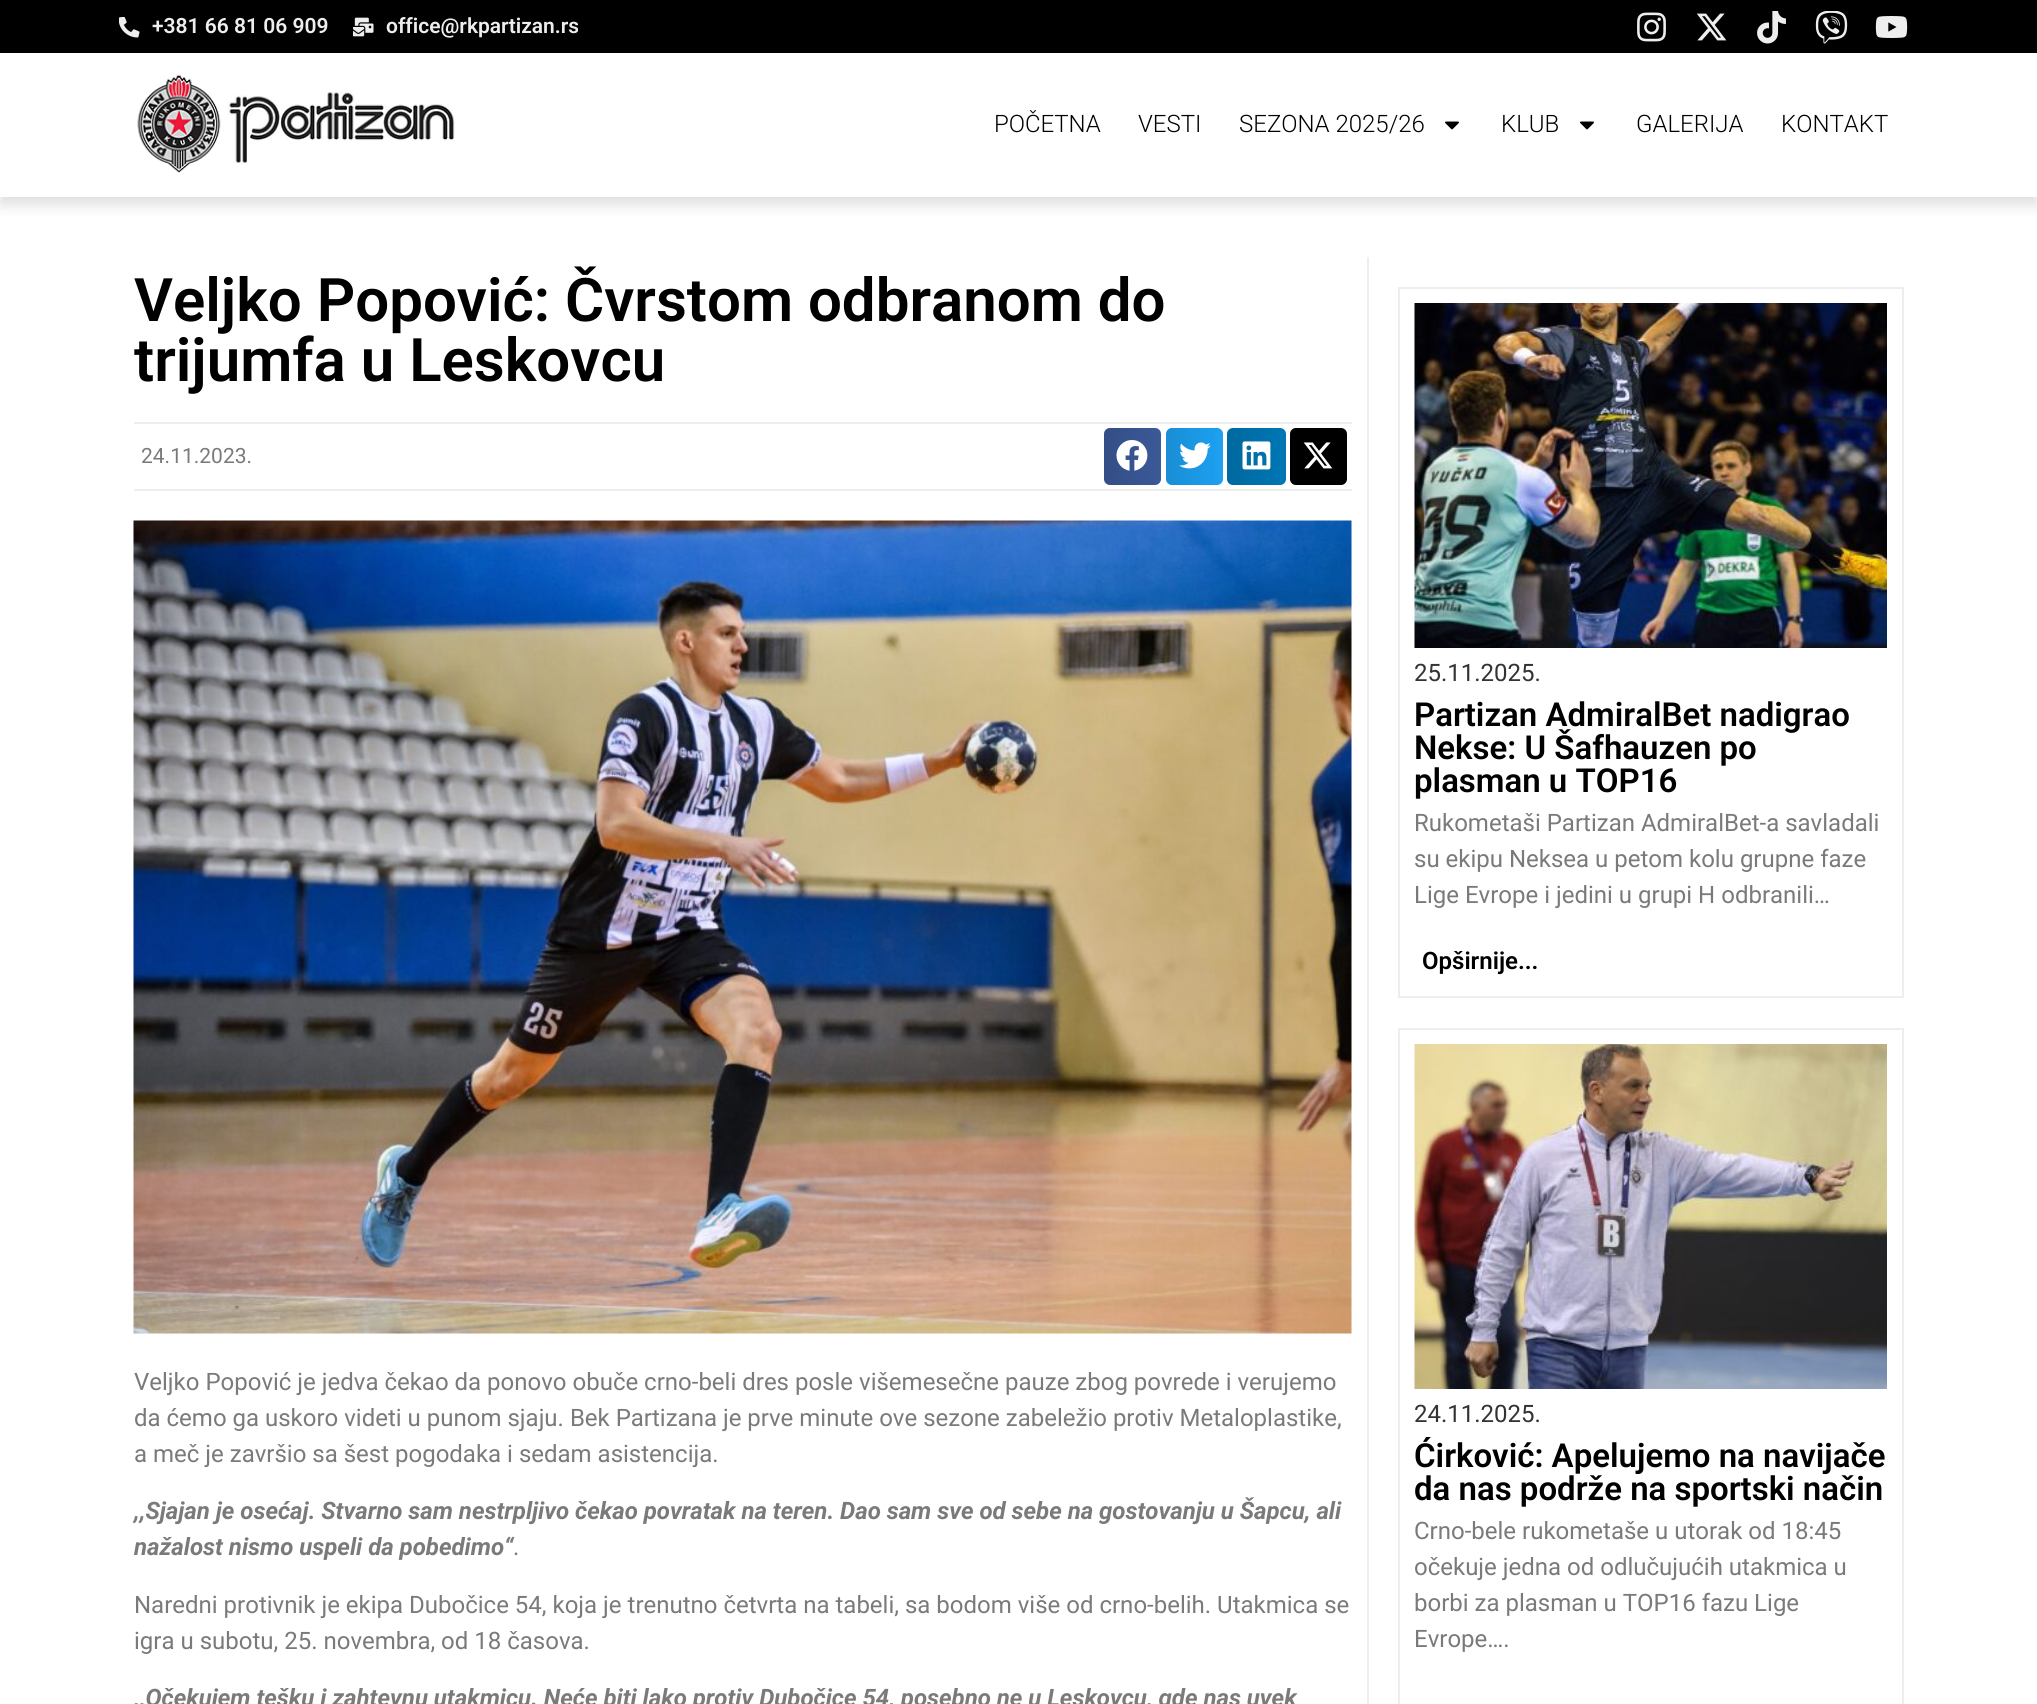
import math
import cairocffi as cairo

surface = cairo.ImageSurface(cairo.FORMAT_RGB24, 2037, 1704)
cr = cairo.Context(surface)
options = cairo.FontOptions()
options.set_hint_metrics(cairo.HINT_METRICS_OFF)
options.set_hint_style(cairo.HINT_STYLE_NONE)
cr.set_font_options(options)
cr.set_miter_limit(4)


def use_color(code):
    cr.set_source_rgb(*(v / 255 for v in bytes.fromhex(code[-6:])))


def round_rect(x, y, w, h, r):
    cr.new_sub_path()
    for i, (u, v) in enumerate([(x + w - r, y + h - r), (x + r, y + h - r), (x + r, y + r), (x + w - r, y + r)]):
        cr.arc(u, v, r, i * math.pi / 2, (i + 1) * math.pi / 2)
    cr.close_path()


def shadow(x, y, w, h, r, blur, alpha):
    cr.push_group_with_content(cairo.CONTENT_ALPHA)
    cr.set_operator(cairo.OPERATOR_SOURCE)
    for i in range(15, -16, -2):
        e = blur * i / 6
        if min(w, h) + 2 * e > 0:
            cr.set_source_rgba(0, 0, 0, alpha * math.erfc((i - 1) / 8.5) / 2)
            round_rect(x - e, y - e, w + 2 * e, h + 2 * e, max(0, min(r + e + blur * .6, min(w, h) / 2 + e)))
            cr.fill()
    cr.mask(cr.pop_group())


def picture(path, x, y, w, h):
    cr.save()
    cr.set_source_surface(cairo.ImageSurface.create_from_png(path), x, y)
    cr.rectangle(x, y, w, h)
    cr.fill()
    cr.restore()


use_color("#ffffff")
cr.paint()
use_color("#000000")
cr.rectangle(0, 0, 2037, 53)
cr.fill()
picture("img1.png", 119, 17, 21, 21)
cr.select_font_face("Roboto SemiBold")
cr.set_font_size(21)
use_color("#eeeeee")
cr.move_to(152, 33)
cr.show_text("+381 66 81 06 909")
picture("img2.png", 353, 17, 21, 20)
cr.move_to(386, 33)
cr.show_text("office@rkpartizan.rs")
picture("img3.png", 1637, 12, 29, 30)
picture("img4.png", 1696, 13, 31, 28)
picture("img5.png", 1757, 11, 29, 33)
picture("img6.png", 1815, 11, 33, 33)
picture("img7.png", 1875, 16, 33, 22)
use_color("#000000")
shadow(0, 60, 2037, 144, 0, 7.5, 0.14)
use_color("#ffffff")
cr.rectangle(0, 53, 2037, 144)
cr.fill()
picture("img8.png", 137, 74, 318, 99)
cr.select_font_face("Roboto Light")
cr.set_font_size(24)
use_color("#000000")
cr.move_to(994, 132)
cr.show_text("POČETNA")
cr.move_to(1138, 132)
cr.show_text("VESTI")
cr.move_to(1239, 132)
cr.show_text("SEZONA 2025/26")
picture("img9.png", 1445, 121, 14, 9)
cr.move_to(1501, 132)
cr.show_text("KLUB")
picture("img9.png", 1580, 121, 14, 9)
cr.move_to(1636, 132)
cr.show_text("GALERIJA")
cr.move_to(1781, 132)
cr.show_text("KONTAKT")
use_color("#eeeeee")
cr.rectangle(1367, 257, 2, 1447)
cr.fill()
cr.select_font_face("Roboto SemiBold")
cr.set_font_size(60)
use_color("#000000")
cr.move_to(134, 321)
cr.show_text("Veljko Popović: Čvrstom odbranom do")
cr.move_to(134, 381)
cr.show_text("trijumfa u Leskovcu")
use_color("#eeeeee")
cr.rectangle(134, 422, 1218, 2)
cr.fill()
cr.rectangle(134, 489, 1218, 2)
cr.fill()
cr.select_font_face("Roboto")
cr.set_font_size(21)
use_color("#7a7a7a")
cr.move_to(141, 463)
cr.show_text("24.11.2023.")
use_color("#3b5998")
round_rect(1104, 428, 57, 57, 6)
cr.fill()
gradient = cairo.LinearGradient(1104, 456, 1161, 456)
gradient.add_color_stop_rgba(0, 0, 0, 0, 0.12)
gradient.add_color_stop_rgba(1, 0, 0, 0, 0)
cr.set_source(gradient)
round_rect(1104, 428, 57, 57, 6)
cr.fill()
picture("img10.png", 1116, 440, 32, 31)
use_color("#1da1f2")
round_rect(1166, 428, 57, 57, 6)
cr.fill()
gradient = cairo.LinearGradient(1166, 456, 1223, 456)
gradient.add_color_stop_rgba(0, 0, 0, 0, 0.12)
gradient.add_color_stop_rgba(1, 0, 0, 0, 0)
cr.set_source(gradient)
round_rect(1166, 428, 57, 57, 6)
cr.fill()
picture("img11.png", 1179, 442, 32, 27)
use_color("#0077b5")
round_rect(1227, 428, 59, 57, 6)
cr.fill()
gradient = cairo.LinearGradient(1227, 456, 1286, 456)
gradient.add_color_stop_rgba(0, 0, 0, 0, 0.12)
gradient.add_color_stop_rgba(1, 0, 0, 0, 0)
cr.set_source(gradient)
round_rect(1227, 428, 59, 57, 6)
cr.fill()
picture("img12.png", 1242, 441, 29, 29)
use_color("#000000")
round_rect(1290, 428, 57, 57, 6)
cr.fill()
gradient = cairo.LinearGradient(1290, 456, 1347, 456)
gradient.add_color_stop_rgba(0, 0, 0, 0, 0.12)
gradient.add_color_stop_rgba(1, 0, 0, 0, 0)
cr.set_source(gradient)
round_rect(1290, 428, 57, 57, 6)
cr.fill()
picture("img13.png", 1303, 442, 30, 27)
picture("img14.png", 133, 520, 1219, 814)
cr.set_font_size(24)
use_color("#7a7a7a")
cr.move_to(134, 1390)
cr.show_text("Veljko Popović je jedva čekao da ponovo obuče crno-beli dres posle višemesečne pauze zbog povrede i verujemo")
cr.move_to(134, 1426)
cr.show_text("da ćemo ga uskoro videti u punom sjaju. Bek Partizana je prve minute ove sezone zabeležio protiv Metaloplastike,")
cr.move_to(134, 1462)
cr.show_text("a meč je završio sa šest pogodaka i sedam asistencija.")
cr.select_font_face("Roboto", cairo.FONT_SLANT_ITALIC, cairo.FONT_WEIGHT_BOLD)
cr.move_to(134, 1519)
cr.show_text(",,Sjajan je osećaj. Stvarno sam nestrpljivo čekao povratak na teren. Dao sam sve od sebe na gostovanju u Šapcu, ali")
cr.move_to(134, 1555)
cr.show_text("nažalost nismo uspeli da pobedimo“")
cr.select_font_face("Roboto")
cr.move_to(513, 1555)
cr.show_text(".")
cr.move_to(134, 1613)
cr.show_text("Naredni protivnik je ekipa Dubočice 54, koja je trenutno četvrta na tabeli, sa bodom više od crno-belih. Utakmica se")
cr.move_to(134, 1649)
cr.show_text("igra u subotu, 25. novembra, od 18 časova.")
cr.select_font_face("Roboto", cairo.FONT_SLANT_ITALIC, cairo.FONT_WEIGHT_BOLD)
cr.move_to(134, 1706)
cr.show_text(",,Očekujem tešku i zahtevnu utakmicu. Neće biti lako protiv Dubočice 54, posebno ne u Leskovcu, gde nas uvek")
cr.rectangle(1399, 288, 504, 709)
use_color("#eeeeee")
cr.stroke()
picture("img15.png", 1414, 303, 473, 345)
cr.select_font_face("Roboto")
use_color("#333333")
cr.move_to(1414, 681)
cr.show_text("25.11.2025.")
cr.select_font_face("Roboto SemiBold")
cr.set_font_size(33)
use_color("#000000")
cr.move_to(1414, 726)
cr.show_text("Partizan AdmiralBet nadigrao")
cr.move_to(1414, 759)
cr.show_text("Nekse: U Šafhauzen po")
cr.move_to(1414, 792)
cr.show_text("plasman u TOP16")
cr.select_font_face("Roboto")
cr.set_font_size(24)
use_color("#7a7a7a")
cr.move_to(1414, 831)
cr.show_text("Rukometaši Partizan AdmiralBet-a savladali")
cr.move_to(1414, 867)
cr.show_text("su ekipu Neksea u petom kolu grupne faze")
cr.move_to(1414, 903)
cr.show_text("Lige Evrope i jedini u grupi H odbranili…")
cr.select_font_face("Roboto SemiBold")
use_color("#000000")
cr.move_to(1422, 969)
cr.show_text("Opširnije...")
cr.rectangle(1399, 1029, 504, 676)
use_color("#eeeeee")
cr.stroke()
picture("img16.png", 1414, 1044, 473, 345)
cr.select_font_face("Roboto")
use_color("#333333")
cr.move_to(1414, 1422)
cr.show_text("24.11.2025.")
cr.select_font_face("Roboto SemiBold")
cr.set_font_size(33)
use_color("#000000")
cr.move_to(1414, 1467)
cr.show_text("Ćirković: Apelujemo na navijače")
cr.move_to(1414, 1500)
cr.show_text("da nas podrže na sportski način")
cr.select_font_face("Roboto")
cr.set_font_size(24)
use_color("#7a7a7a")
cr.move_to(1414, 1539)
cr.show_text("Crno-bele rukometaše u utorak od 18:45")
cr.move_to(1414, 1575)
cr.show_text("očekuje jedna od odlučujućih utakmica u")
cr.move_to(1414, 1611)
cr.show_text("borbi za plasman u TOP16 fazu Lige")
cr.move_to(1414, 1647)
cr.show_text("Evrope….")
surface.write_to_png("result.png")
